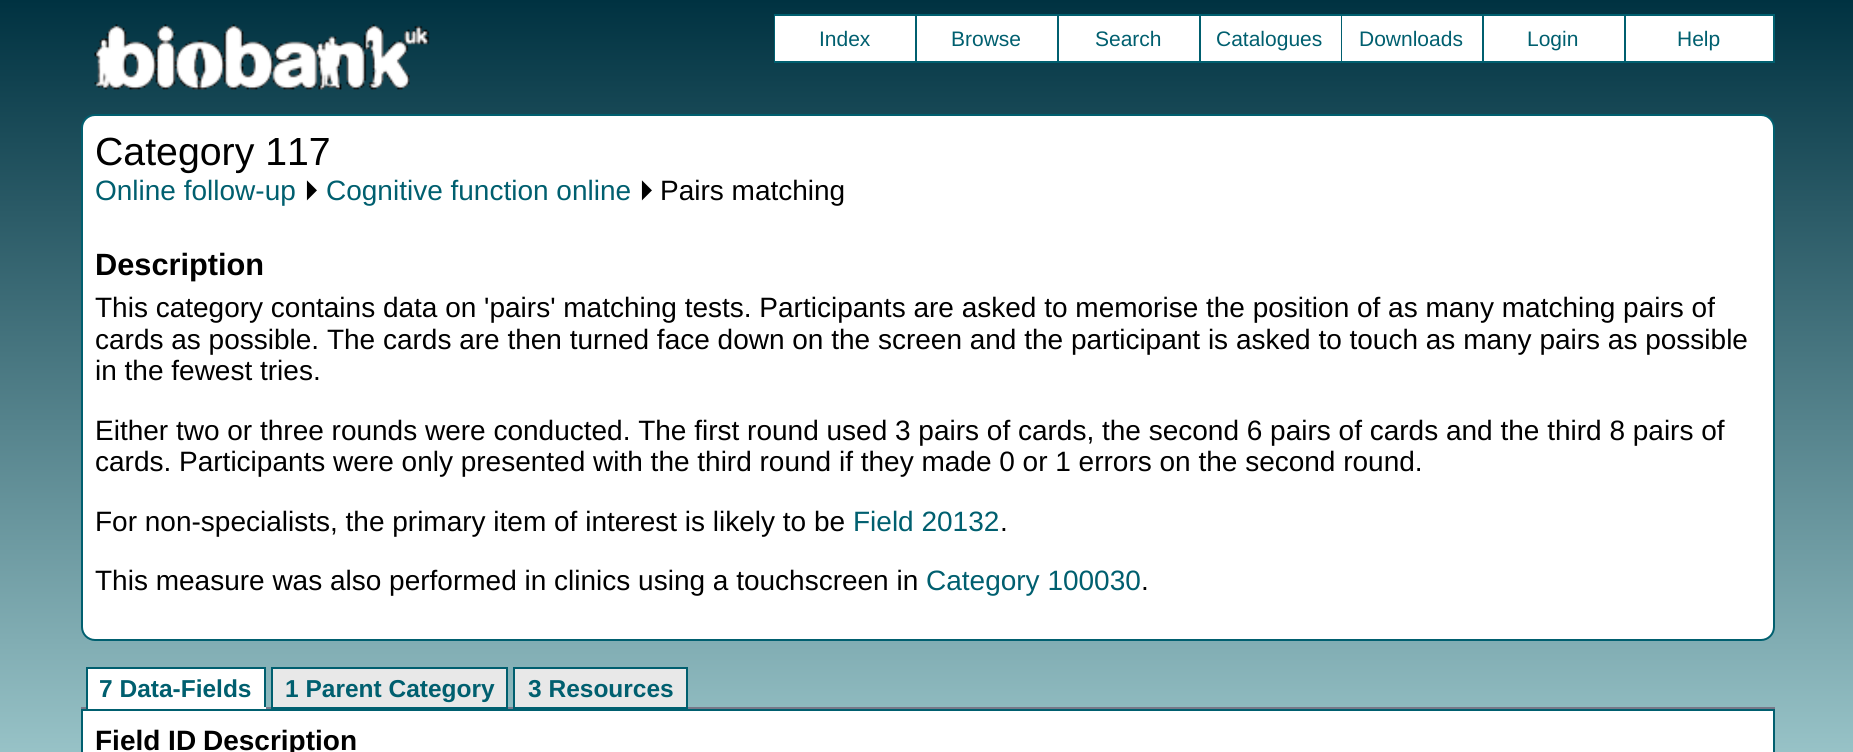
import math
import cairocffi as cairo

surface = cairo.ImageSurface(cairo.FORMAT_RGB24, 1853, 752)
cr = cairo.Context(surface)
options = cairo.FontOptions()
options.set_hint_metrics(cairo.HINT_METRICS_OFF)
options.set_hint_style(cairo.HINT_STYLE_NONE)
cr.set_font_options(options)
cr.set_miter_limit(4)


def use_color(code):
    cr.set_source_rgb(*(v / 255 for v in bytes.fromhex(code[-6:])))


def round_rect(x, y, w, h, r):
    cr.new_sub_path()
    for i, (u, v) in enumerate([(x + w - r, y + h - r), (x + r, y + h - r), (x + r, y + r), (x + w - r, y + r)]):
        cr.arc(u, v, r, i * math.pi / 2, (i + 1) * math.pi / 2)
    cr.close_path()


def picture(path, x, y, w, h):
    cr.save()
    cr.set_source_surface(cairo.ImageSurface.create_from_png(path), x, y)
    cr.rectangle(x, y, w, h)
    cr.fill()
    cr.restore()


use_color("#ffffff")
cr.paint()
gradient = cairo.LinearGradient(0, 0, 0, 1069)
gradient.add_color_stop_rgba(0, 0, 0.196, 0.255, 1)
gradient.add_color_stop_rgba(1, 0.843, 1, 1, 1)
cr.set_source(gradient)
cr.rectangle(0, 0, 1853, 752)
cr.fill()
picture("img1.png", 94, 24, 336, 66)
use_color("#005f6f")
cr.rectangle(774, 14, 850, 2)
cr.fill()
cr.rectangle(774, 61, 850, 2)
cr.fill()
cr.rectangle(774, 14, 2, 49)
cr.fill()
use_color("#ffffff")
cr.rectangle(775, 16, 140, 45)
cr.fill()
cr.select_font_face("Liberation Sans")
cr.set_font_size(21)
use_color("#005f6f")
cr.move_to(819, 46)
cr.show_text("Index")
cr.rectangle(915, 14, 2, 49)
cr.fill()
use_color("#ffffff")
cr.rectangle(917, 16, 140, 45)
cr.fill()
use_color("#005f6f")
cr.move_to(951, 46)
cr.show_text("Browse")
cr.rectangle(1057, 14, 2, 49)
cr.fill()
use_color("#ffffff")
cr.rectangle(1059, 16, 140, 45)
cr.fill()
use_color("#005f6f")
cr.move_to(1095, 46)
cr.show_text("Search")
cr.rectangle(1199, 14, 2, 49)
cr.fill()
use_color("#ffffff")
cr.rectangle(1201, 16, 140, 45)
cr.fill()
use_color("#005f6f")
cr.move_to(1216, 46)
cr.show_text("Catalogues")
cr.rectangle(1341, 14, 2, 49)
cr.fill()
use_color("#ffffff")
cr.rectangle(1342, 16, 140, 45)
cr.fill()
use_color("#005f6f")
cr.move_to(1359, 46)
cr.show_text("Downloads")
cr.rectangle(1482, 14, 2, 49)
cr.fill()
use_color("#ffffff")
cr.rectangle(1484, 16, 140, 45)
cr.fill()
use_color("#005f6f")
cr.move_to(1527, 46)
cr.show_text("Login")
cr.rectangle(1625, 15, 149, 47)
cr.stroke()
use_color("#ffffff")
cr.rectangle(1626, 16, 147, 45)
cr.fill()
use_color("#005f6f")
cr.move_to(1677, 46)
cr.show_text("Help")
use_color("#ffffff")
round_rect(82, 115, 1692, 525, 13)
cr.fill_preserve()
use_color("#005f6f")
cr.stroke()
cr.set_font_size(39.25)
use_color("#000000")
cr.move_to(95, 165)
cr.show_text("Category 117")
cr.set_font_size(28)
use_color("#005f6f")
cr.move_to(95, 200)
cr.show_text("Online follow-up")
cr.select_font_face("FreeSans")
use_color("#000000")
cr.move_to(304, 200)
cr.show_text("⏵")
cr.select_font_face("Liberation Sans")
use_color("#005f6f")
cr.move_to(326, 200)
cr.show_text("Cognitive function online")
cr.select_font_face("FreeSans")
use_color("#000000")
cr.move_to(639, 200)
cr.show_text("⏵")
cr.select_font_face("Liberation Sans")
cr.move_to(660, 200)
cr.show_text("Pairs matching")
cr.select_font_face("Liberation Sans", cairo.FONT_SLANT_NORMAL, cairo.FONT_WEIGHT_BOLD)
cr.set_font_size(30.75)
cr.move_to(95, 275)
cr.show_text("Description")
cr.select_font_face("Liberation Sans")
cr.set_font_size(28)
cr.move_to(95, 317)
cr.show_text("This category contains data on 'pairs' matching tests. Participants are asked to memorise the position of as many matching pairs of")
cr.move_to(95, 349)
cr.show_text("cards as possible. The cards are then turned face down on the screen and the participant is asked to touch as many pairs as possible")
cr.move_to(95, 380)
cr.show_text("in the fewest tries.")
cr.move_to(95, 440)
cr.show_text("Either two or three rounds were conducted. The first round used 3 pairs of cards, the second 6 pairs of cards and the third 8 pairs of")
cr.move_to(95, 471)
cr.show_text("cards. Participants were only presented with the third round if they made 0 or 1 errors on the second round.")
cr.move_to(95, 531)
cr.show_text("For non-specialists, the primary item of interest is likely to be")
use_color("#005f6f")
cr.move_to(853, 531)
cr.show_text("Field 20132")
use_color("#000000")
cr.move_to(1000, 531)
cr.show_text(".")
cr.move_to(95, 590)
cr.show_text("This measure was also performed in clinics using a touchscreen in")
use_color("#005f6f")
cr.move_to(926, 590)
cr.show_text("Category 100030")
use_color("#000000")
cr.move_to(1141, 590)
cr.show_text(".")
use_color("#777788")
cr.rectangle(81, 707, 1694, 2)
cr.fill()
use_color("#ffffff")
cr.rectangle(88, 669, 176, 38)
cr.fill()
cr.select_font_face("Liberation Sans", cairo.FONT_SLANT_NORMAL, cairo.FONT_WEIGHT_BOLD)
cr.set_font_size(24.5)
use_color("#005f6f")
cr.move_to(99, 697)
cr.show_text("7 Data-Fields")
cr.rectangle(86, 667, 180, 2)
cr.fill()
cr.rectangle(264, 667, 2, 42)
cr.fill()
use_color("#ffffff")
cr.rectangle(86, 707, 180, 2)
cr.fill()
use_color("#005f6f")
cr.rectangle(86, 667, 2, 42)
cr.fill()
use_color("#e8e8e8")
cr.rectangle(272, 668, 235, 40)
cr.fill_preserve()
use_color("#005f6f")
cr.stroke()
cr.move_to(285, 697)
cr.show_text("1 Parent Category")
use_color("#e8e8e8")
cr.rectangle(514, 668, 173, 40)
cr.fill_preserve()
use_color("#005f6f")
cr.stroke()
cr.move_to(528, 697)
cr.show_text("3 Resources")
use_color("#ffffff")
cr.rectangle(82, 710, 1692, 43)
cr.fill_preserve()
use_color("#005f6f")
cr.stroke()
cr.set_font_size(28)
use_color("#000000")
cr.move_to(95, 750)
cr.show_text("Field ID")
cr.move_to(203, 750)
cr.show_text("Description")
surface.write_to_png("result.png")
